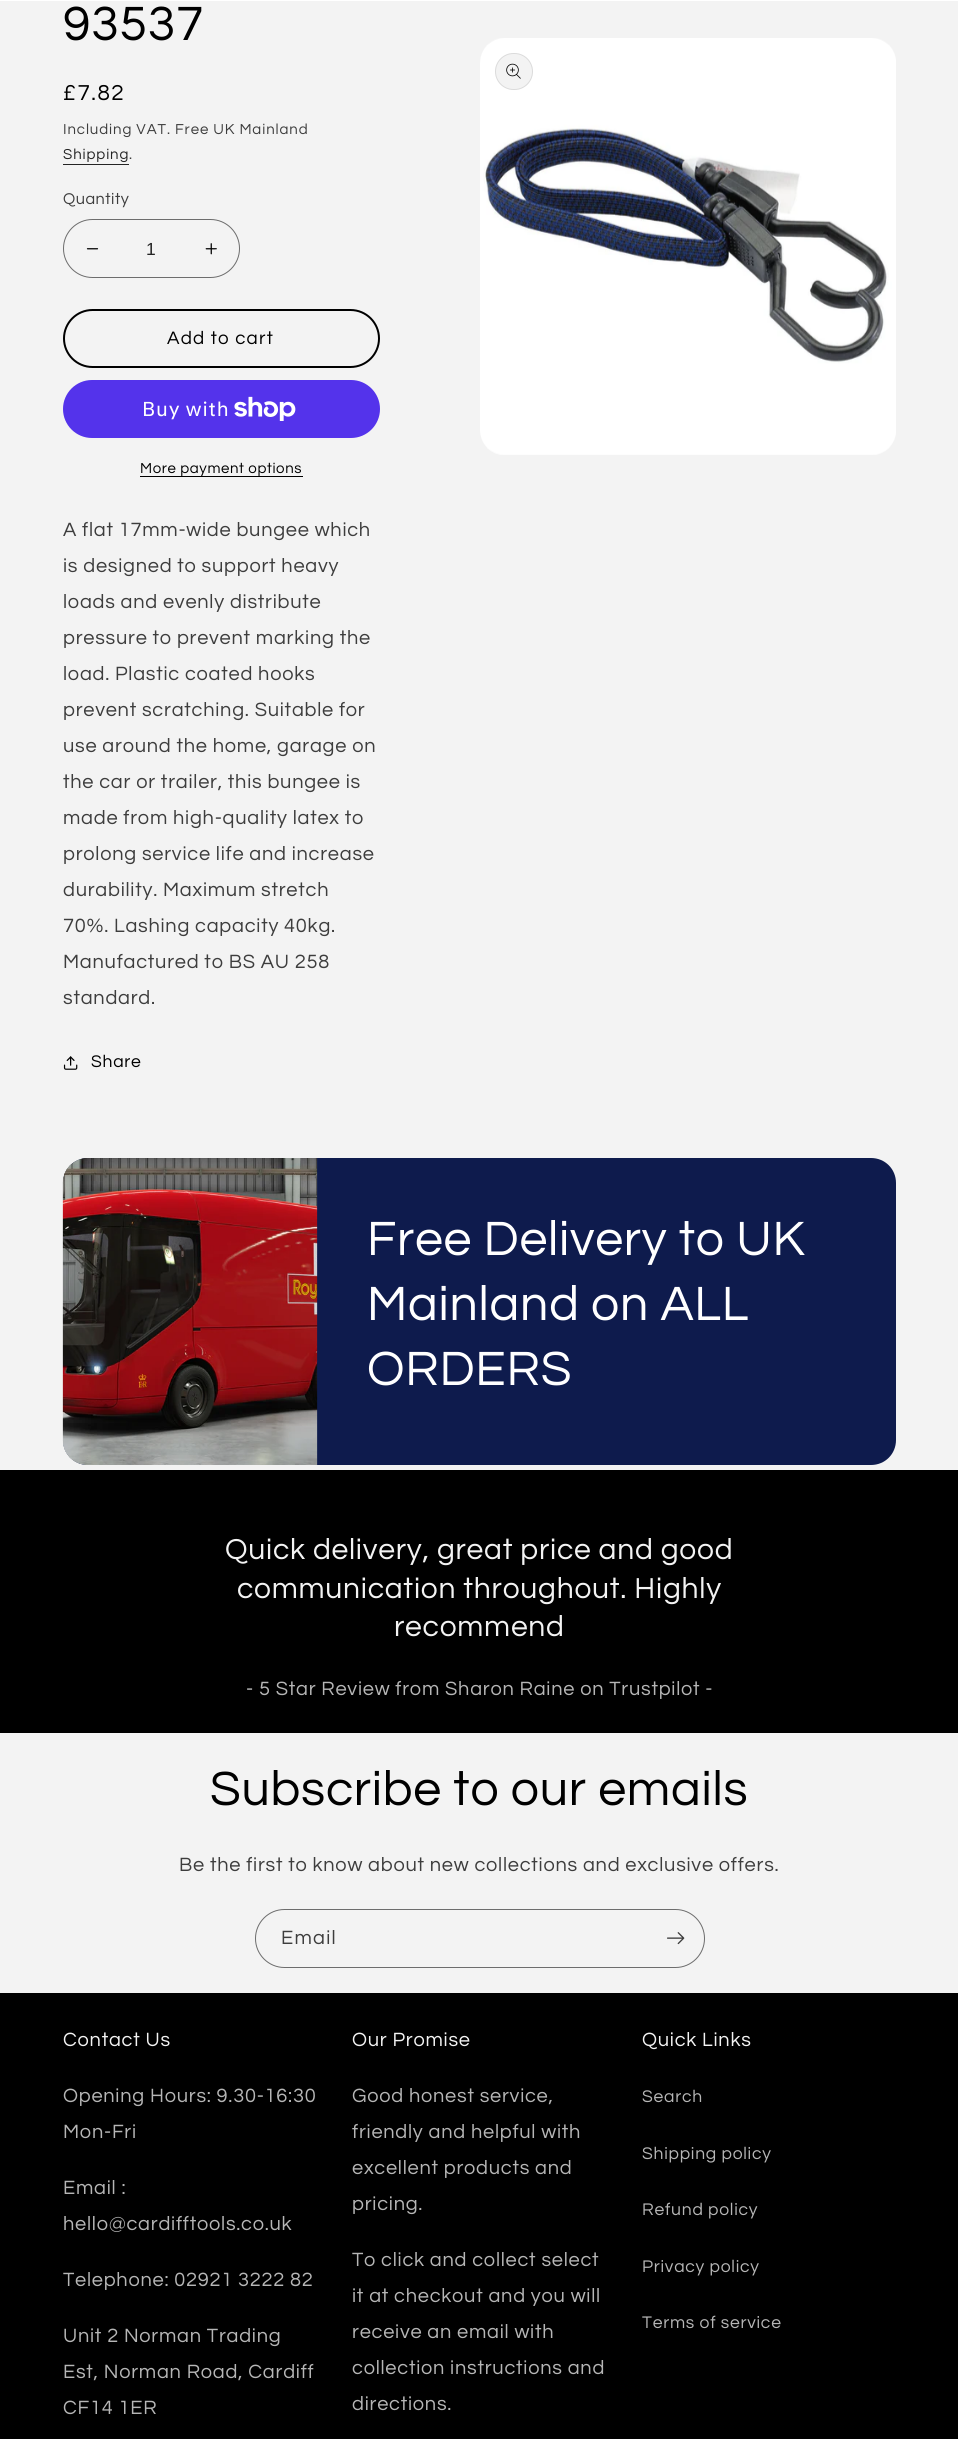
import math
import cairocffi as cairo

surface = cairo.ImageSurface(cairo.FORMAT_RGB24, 958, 2439)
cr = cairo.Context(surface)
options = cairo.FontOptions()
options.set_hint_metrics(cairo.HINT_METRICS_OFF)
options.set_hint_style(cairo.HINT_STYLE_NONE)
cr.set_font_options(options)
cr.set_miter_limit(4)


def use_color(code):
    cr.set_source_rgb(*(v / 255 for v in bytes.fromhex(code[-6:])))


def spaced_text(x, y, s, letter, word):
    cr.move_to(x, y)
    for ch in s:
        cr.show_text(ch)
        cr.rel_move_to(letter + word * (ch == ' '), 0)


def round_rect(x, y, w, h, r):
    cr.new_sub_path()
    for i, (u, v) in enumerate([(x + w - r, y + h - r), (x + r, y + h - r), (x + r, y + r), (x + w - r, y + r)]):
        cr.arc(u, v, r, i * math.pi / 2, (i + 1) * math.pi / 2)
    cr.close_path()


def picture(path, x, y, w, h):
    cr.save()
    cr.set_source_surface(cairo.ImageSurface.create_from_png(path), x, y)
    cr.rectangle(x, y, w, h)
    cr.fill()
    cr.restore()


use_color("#f3f3f3")
cr.paint()
use_color("#ffffff")
cr.rectangle(0, 0, 958, 1)
cr.fill()
cr.select_font_face("Questrial")
cr.set_font_size(50)
use_color("#000000")
spaced_text(63, 40, "93537", 0.75, 0)
cr.set_font_size(22.5)
spaced_text(63, 100, "£7.82", 1.5, 0)
cr.set_font_size(15)
use_color("#3d3d3d")
spaced_text(63, 134, "Including VAT. Free UK Mainland", 0.9, 0)
use_color("#242424")
spaced_text(63, 159, "Shipping", 0.9, 0)
cr.rectangle(63, 164, 66, 1)
cr.fill()
use_color("#3d3d3d")
spaced_text(129, 159, ".", 0.9, 0)
cr.set_font_size(16.25)
spaced_text(63, 204, "Quantity", 0.5, 0)
picture("img1.png", 86, 248, 13, 2)
picture("img2.png", 205, 243, 12, 12)
round_rect(63.5, 219.5, 176, 58, 29)
use_color("#6d6d6d")
cr.set_line_width(1)
cr.stroke()
cr.select_font_face("Liberation Sans")
cr.set_font_size(17.5)
use_color("#242424")
cr.move_to(146, 255)
cr.show_text("1")
round_rect(64, 310, 315, 57, 28.5)
use_color("#000000")
cr.set_line_width(2)
cr.stroke()
cr.select_font_face("Questrial")
cr.set_font_size(18.75)
spaced_text(167, 344, "Add to cart", 1.25, 0)
use_color("#5433eb")
round_rect(63, 380, 317, 58, 29)
cr.fill()
cr.select_font_face("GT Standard")
cr.set_font_size(20)
use_color("#ffffff")
spaced_text(142, 416, "Buy with", 0.75, 0)
picture("img3.png", 234, 396, 62, 25)
cr.select_font_face("Questrial")
cr.set_font_size(15)
use_color("#000000")
spaced_text(140, 473, "More payment options", 0.6, 0)
cr.rectangle(140, 476, 163, 1)
cr.fill()
cr.set_font_size(20)
use_color("#3d3d3d")
spaced_text(63, 536, "A flat 17mm-wide bungee which", 0.75, 0)
spaced_text(63, 572, "is designed to support heavy", 0.75, 0)
spaced_text(63, 608, "loads and evenly distribute", 0.75, 0)
spaced_text(63, 644, "pressure to prevent marking the", 0.75, 0)
spaced_text(63, 680, "load. Plastic coated hooks", 0.75, 0)
spaced_text(63, 716, "prevent scratching. Suitable for", 0.75, 0)
spaced_text(63, 752, "use around the home, garage on", 0.75, 0)
spaced_text(63, 788, "the car or trailer, this bungee is", 0.75, 0)
spaced_text(63, 824, "made from high-quality latex to", 0.75, 0)
spaced_text(63, 860, "prolong service life and increase", 0.75, 0)
spaced_text(63, 896, "durability. Maximum stretch", 0.75, 0)
spaced_text(63, 932, "70%. Lashing capacity 40kg.", 0.75, 0)
spaced_text(63, 968, "Manufactured to BS AU 258", 0.75, 0)
spaced_text(63, 1004, "standard.", 0.75, 0)
picture("img4.png", 63, 1056, 15, 14)
cr.set_font_size(17.5)
use_color("#000000")
spaced_text(91, 1067, "Share", 0.75, 0)
picture("img5.png", 480, 38, 416, 417)
use_color("#f3f3f3")
round_rect(495, 53, 38, 37, 18.5)
cr.fill()
round_rect(495.5, 53.5, 37, 36, 18)
cr.set_source_rgba(0, 0, 0, 0.1)
cr.set_line_width(1)
cr.stroke()
picture("img6.png", 506, 63, 15, 16)
use_color("#0e1b4d")
cr.new_path()
cr.move_to(88, 1158)
cr.line_to(318, 1158)
cr.line_to(318, 1465)
cr.line_to(88, 1465)
cr.curve_to(74, 1465, 63, 1454, 63, 1440)
cr.line_to(63, 1183)
cr.curve_to(63, 1169, 74, 1158, 88, 1158)
cr.close_path()
cr.fill()
picture("img7.png", 62, 1158, 256, 307)
cr.new_path()
cr.move_to(318, 1158)
cr.line_to(871, 1158)
cr.curve_to(885, 1158, 896, 1169, 896, 1183)
cr.line_to(896, 1440)
cr.curve_to(896, 1454, 885, 1465, 871, 1465)
cr.line_to(318, 1465)
cr.close_path()
cr.fill()
cr.set_font_size(50)
use_color("#ffffff")
spaced_text(367, 1255, "Free Delivery to UK", 0.75, 0)
spaced_text(367, 1320, "Mainland on ALL", 0.75, 0)
spaced_text(367, 1385, "ORDERS", 0.75, 0)
use_color("#000000")
cr.rectangle(0, 1470, 958, 263)
cr.fill()
cr.set_font_size(30)
use_color("#f3f3f3")
spaced_text(225, 1559, "Quick delivery, great price and good", 0.75, 0)
spaced_text(237, 1598, "communication throughout. Highly", 0.75, 0)
spaced_text(394, 1636, "recommend", 0.75, 0)
cr.set_font_size(20)
use_color("#b6b6b6")
spaced_text(246, 1695, "- 5 Star Review from Sharon Raine on Trustpilot -", 0.75, 0)
cr.set_font_size(50)
use_color("#000000")
spaced_text(210, 1805, "Subscribe to our emails", 0.75, 0)
cr.set_font_size(20)
use_color("#3d3d3d")
spaced_text(179, 1871, "Be the first to know about new collections and exclusive offers.", 0.75, 0)
round_rect(255.5, 1909.5, 449, 58, 29)
use_color("#6d6d6d")
cr.stroke()
use_color("#3d3d3d")
spaced_text(281, 1944, "Email", 1.25, 0)
picture("img8.png", 667, 1932, 18, 13)
use_color("#000000")
cr.rectangle(0, 1993, 958, 446)
cr.fill()
use_color("#f3f3f3")
spaced_text(63, 2046, "Contact Us", 0.75, 0)
use_color("#b6b6b6")
spaced_text(63, 2102, "Opening Hours: 9.30-16:30", 0.75, 0)
spaced_text(63, 2138, "Mon-Fri", 0.75, 0)
spaced_text(63, 2194, "Email :", 0.75, 0)
spaced_text(63, 2230, "hello@cardifftools.co.uk", 0.75, 0)
spaced_text(63, 2286, "Telephone: 02921 3222 82", 0.75, 0)
spaced_text(63, 2342, "Unit 2 Norman Trading", 0.75, 0)
spaced_text(63, 2378, "Est, Norman Road, Cardiff", 0.75, 0)
spaced_text(63, 2414, "CF14 1ER", 0.75, 0)
use_color("#f3f3f3")
spaced_text(352, 2046, "Our Promise", 0.75, 0)
use_color("#b6b6b6")
spaced_text(352, 2102, "Good honest service,", 0.75, 0)
spaced_text(352, 2138, "friendly and helpful with", 0.75, 0)
spaced_text(352, 2174, "excellent products and", 0.75, 0)
spaced_text(352, 2210, "pricing.", 0.75, 0)
spaced_text(352, 2266, "To click and collect select", 0.75, 0)
spaced_text(352, 2302, "it at checkout and you will", 0.75, 0)
spaced_text(352, 2338, "receive an email with", 0.75, 0)
spaced_text(352, 2374, "collection instructions and", 0.75, 0)
spaced_text(352, 2410, "directions.", 0.75, 0)
use_color("#f3f3f3")
spaced_text(642, 2046, "Quick Links", 0.75, 0)
cr.set_font_size(17.5)
use_color("#b6b6b6")
spaced_text(642, 2102, "Search", 0.75, 0)
spaced_text(642, 2159, "Shipping policy", 0.75, 0)
spaced_text(642, 2215, "Refund policy", 0.75, 0)
spaced_text(642, 2272, "Privacy policy", 0.75, 0)
spaced_text(642, 2328, "Terms of service", 0.75, 0)
surface.write_to_png("result.png")
